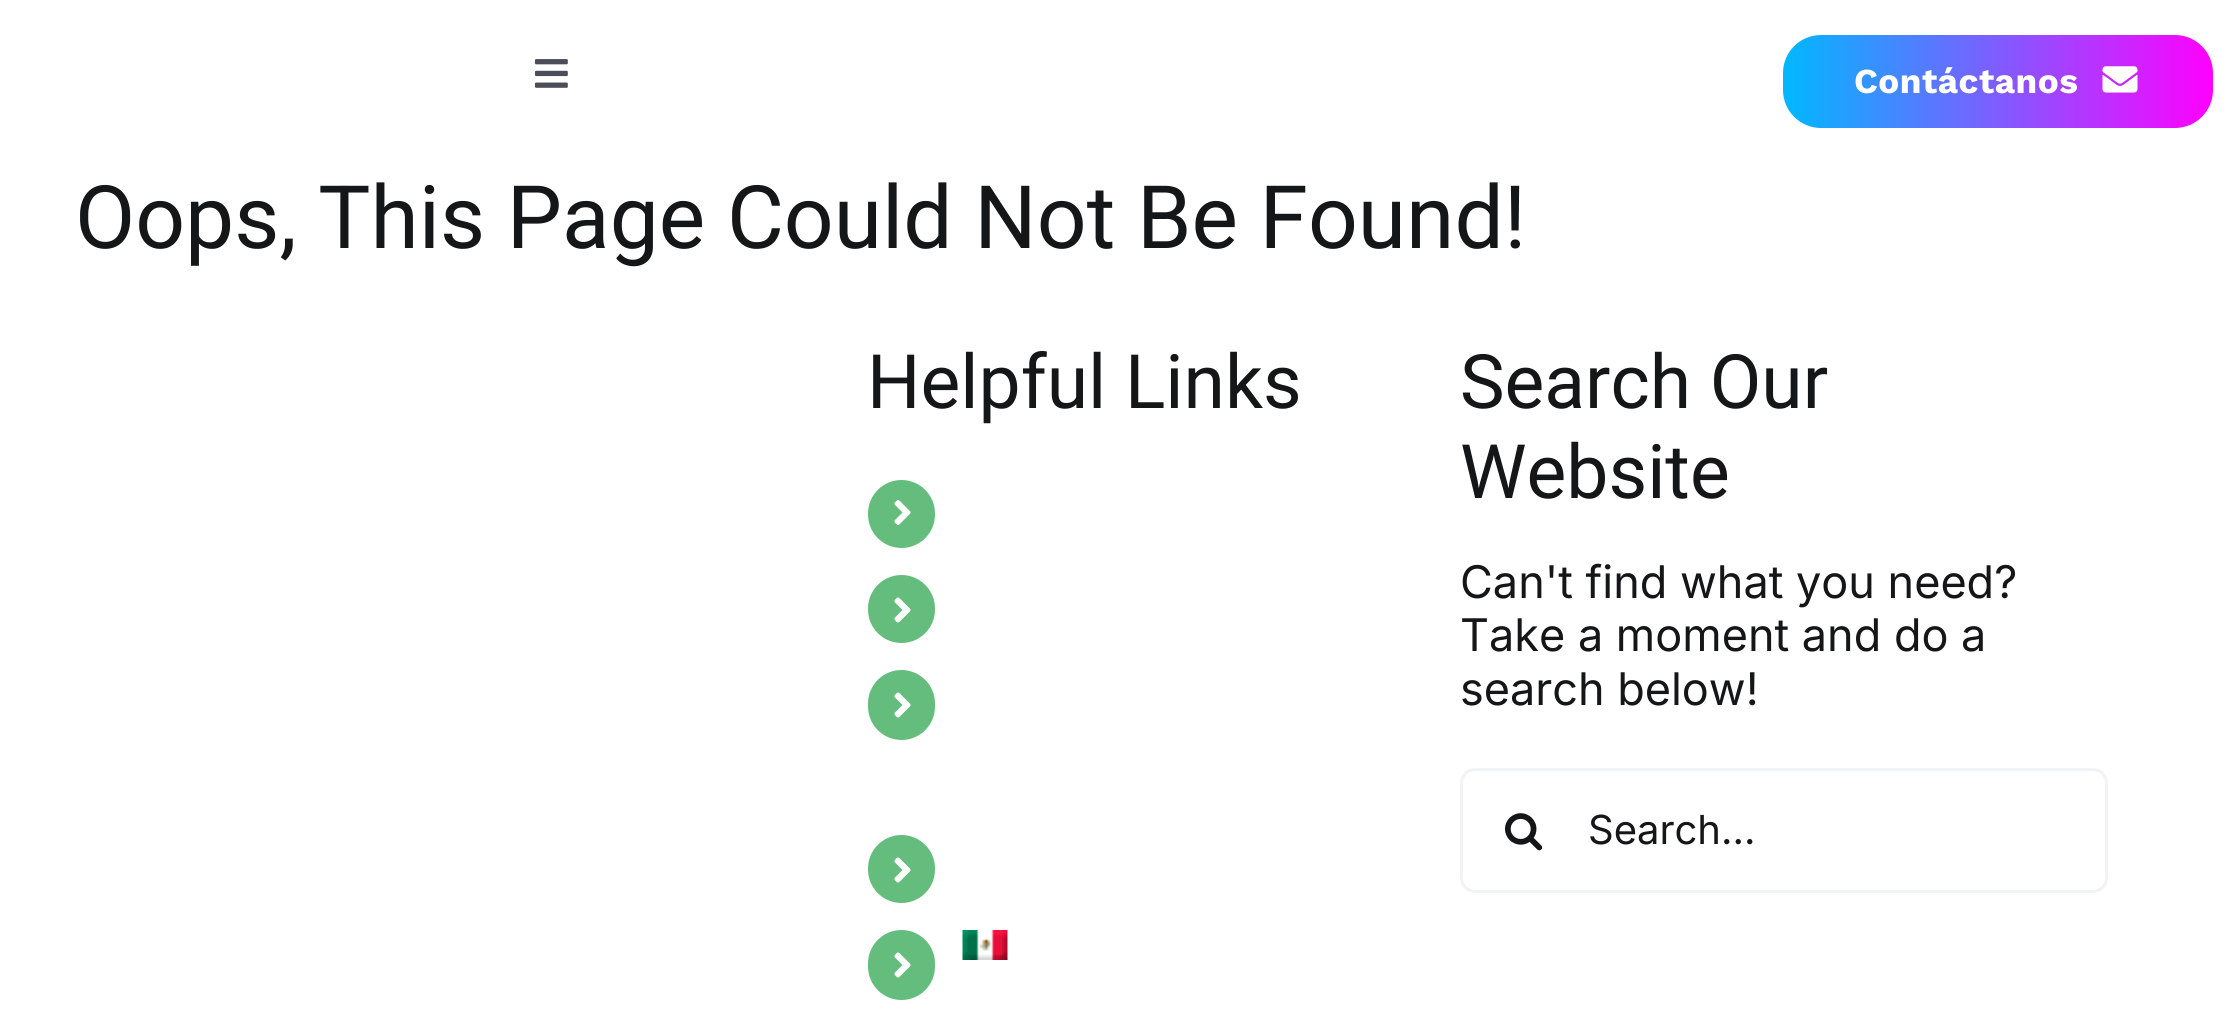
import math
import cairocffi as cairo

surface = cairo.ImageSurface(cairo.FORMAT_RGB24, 2239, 1009)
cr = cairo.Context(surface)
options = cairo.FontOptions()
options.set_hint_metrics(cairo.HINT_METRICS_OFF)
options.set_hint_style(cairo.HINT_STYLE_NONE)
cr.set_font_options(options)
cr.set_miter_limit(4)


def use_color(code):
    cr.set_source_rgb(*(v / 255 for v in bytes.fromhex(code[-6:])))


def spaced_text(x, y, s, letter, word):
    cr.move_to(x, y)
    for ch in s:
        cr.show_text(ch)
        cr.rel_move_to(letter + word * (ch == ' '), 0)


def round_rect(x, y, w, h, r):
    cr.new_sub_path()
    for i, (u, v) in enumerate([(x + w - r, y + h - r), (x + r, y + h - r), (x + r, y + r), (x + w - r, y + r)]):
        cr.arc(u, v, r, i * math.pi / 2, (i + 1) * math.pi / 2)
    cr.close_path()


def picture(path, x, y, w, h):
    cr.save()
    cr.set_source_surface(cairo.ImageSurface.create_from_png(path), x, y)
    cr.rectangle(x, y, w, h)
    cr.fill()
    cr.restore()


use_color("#ffffff")
cr.paint()
picture("img1.png", 535, 59, 33, 29)
gradient = cairo.LinearGradient(1783, 81, 2213, 81)
gradient.add_color_stop_rgba(0, 0, 0.722, 1, 1)
gradient.add_color_stop_rgba(1, 1, 0, 1, 1)
cr.set_source(gradient)
round_rect(1783, 35, 430, 93, 38)
cr.fill()
cr.select_font_face("Work Sans", cairo.FONT_SLANT_NORMAL, cairo.FONT_WEIGHT_BOLD)
cr.set_font_size(35)
use_color("#ffffff")
spaced_text(1854, 93, "Contáctanos", 0.5, 0)
picture("img2.png", 2102, 66, 36, 27)
cr.select_font_face("Roboto")
cr.set_font_size(87.5)
use_color("#141617")
cr.move_to(75, 248)
cr.show_text("Oops, This Page Could Not Be Found!")
cr.set_font_size(75)
cr.move_to(867, 408)
cr.show_text("Helpful Links")
use_color("#65bd7d")
round_rect(868, 480, 67, 68, 33.5)
cr.fill()
picture("img3.png", 894, 500, 17, 25)
round_rect(868, 575, 67, 68, 33.5)
cr.fill()
picture("img4.png", 894, 597, 17, 26)
round_rect(868, 670, 67, 70, 33.5)
cr.fill()
picture("img4.png", 894, 692, 17, 26)
round_rect(868, 835, 67, 68, 33.5)
cr.fill()
picture("img4.png", 894, 857, 17, 26)
round_rect(868, 930, 67, 70, 33.5)
cr.fill()
picture("img4.png", 894, 952, 17, 26)
picture("img5.png", 962, 930, 46, 30)
use_color("#141617")
cr.move_to(1460, 408)
cr.show_text("Search Our")
cr.move_to(1460, 498)
cr.show_text("Website")
cr.select_font_face("Inter")
cr.set_font_size(45)
cr.move_to(1460, 598)
cr.show_text("Can't find what you need?")
cr.move_to(1460, 651)
cr.show_text("Take a moment and do a")
cr.move_to(1460, 705)
cr.show_text("search below!")
round_rect(1461.5, 769.5, 645, 122, 13.5)
use_color("#f2f3f5")
cr.set_line_width(3)
cr.stroke()
picture("img6.png", 1505, 813, 38, 38)
cr.set_font_size(40)
use_color("#141617")
cr.move_to(1588, 844)
cr.show_text("Search...")
surface.write_to_png("result.png")
